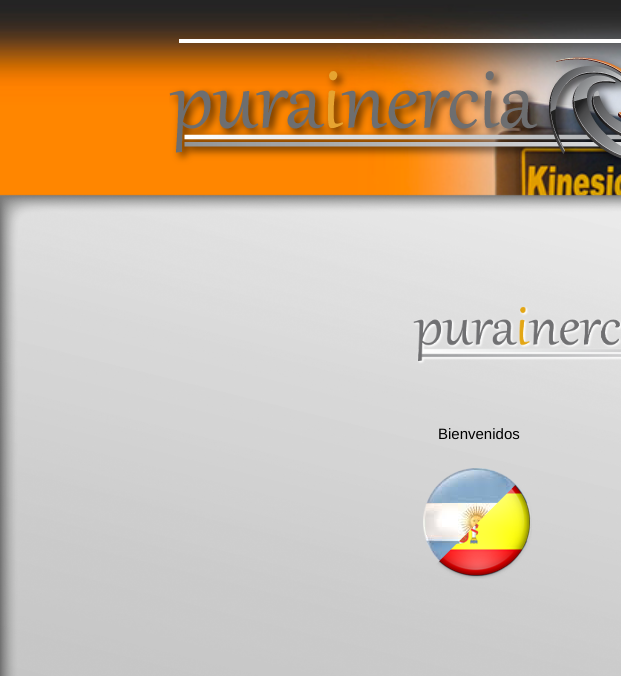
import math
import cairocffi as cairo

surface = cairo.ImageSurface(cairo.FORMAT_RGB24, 621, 676)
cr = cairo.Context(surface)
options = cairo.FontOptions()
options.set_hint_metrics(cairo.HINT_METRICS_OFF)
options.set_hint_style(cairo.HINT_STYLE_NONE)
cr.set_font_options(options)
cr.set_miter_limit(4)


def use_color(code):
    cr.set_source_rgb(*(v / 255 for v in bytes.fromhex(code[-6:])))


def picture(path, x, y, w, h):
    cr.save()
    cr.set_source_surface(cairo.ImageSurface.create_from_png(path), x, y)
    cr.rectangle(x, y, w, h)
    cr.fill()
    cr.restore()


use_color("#ffffff")
cr.paint()
picture("img1.png", 0, 0, 621, 196)
use_color("#ffffff")
cr.rectangle(179, 39, 442, 4)
cr.fill()
picture("img2.png", 169, 56, 452, 109)
picture("img3.png", 0, 194, 621, 482)
picture("img4.png", 413, 306, 208, 58)
cr.select_font_face("Liberation Sans")
cr.set_font_size(15)
use_color("#000000")
cr.move_to(438, 439)
cr.show_text("Bienvenidos")
picture("img5.png", 423, 468, 109, 111)
surface.write_to_png("result.png")
